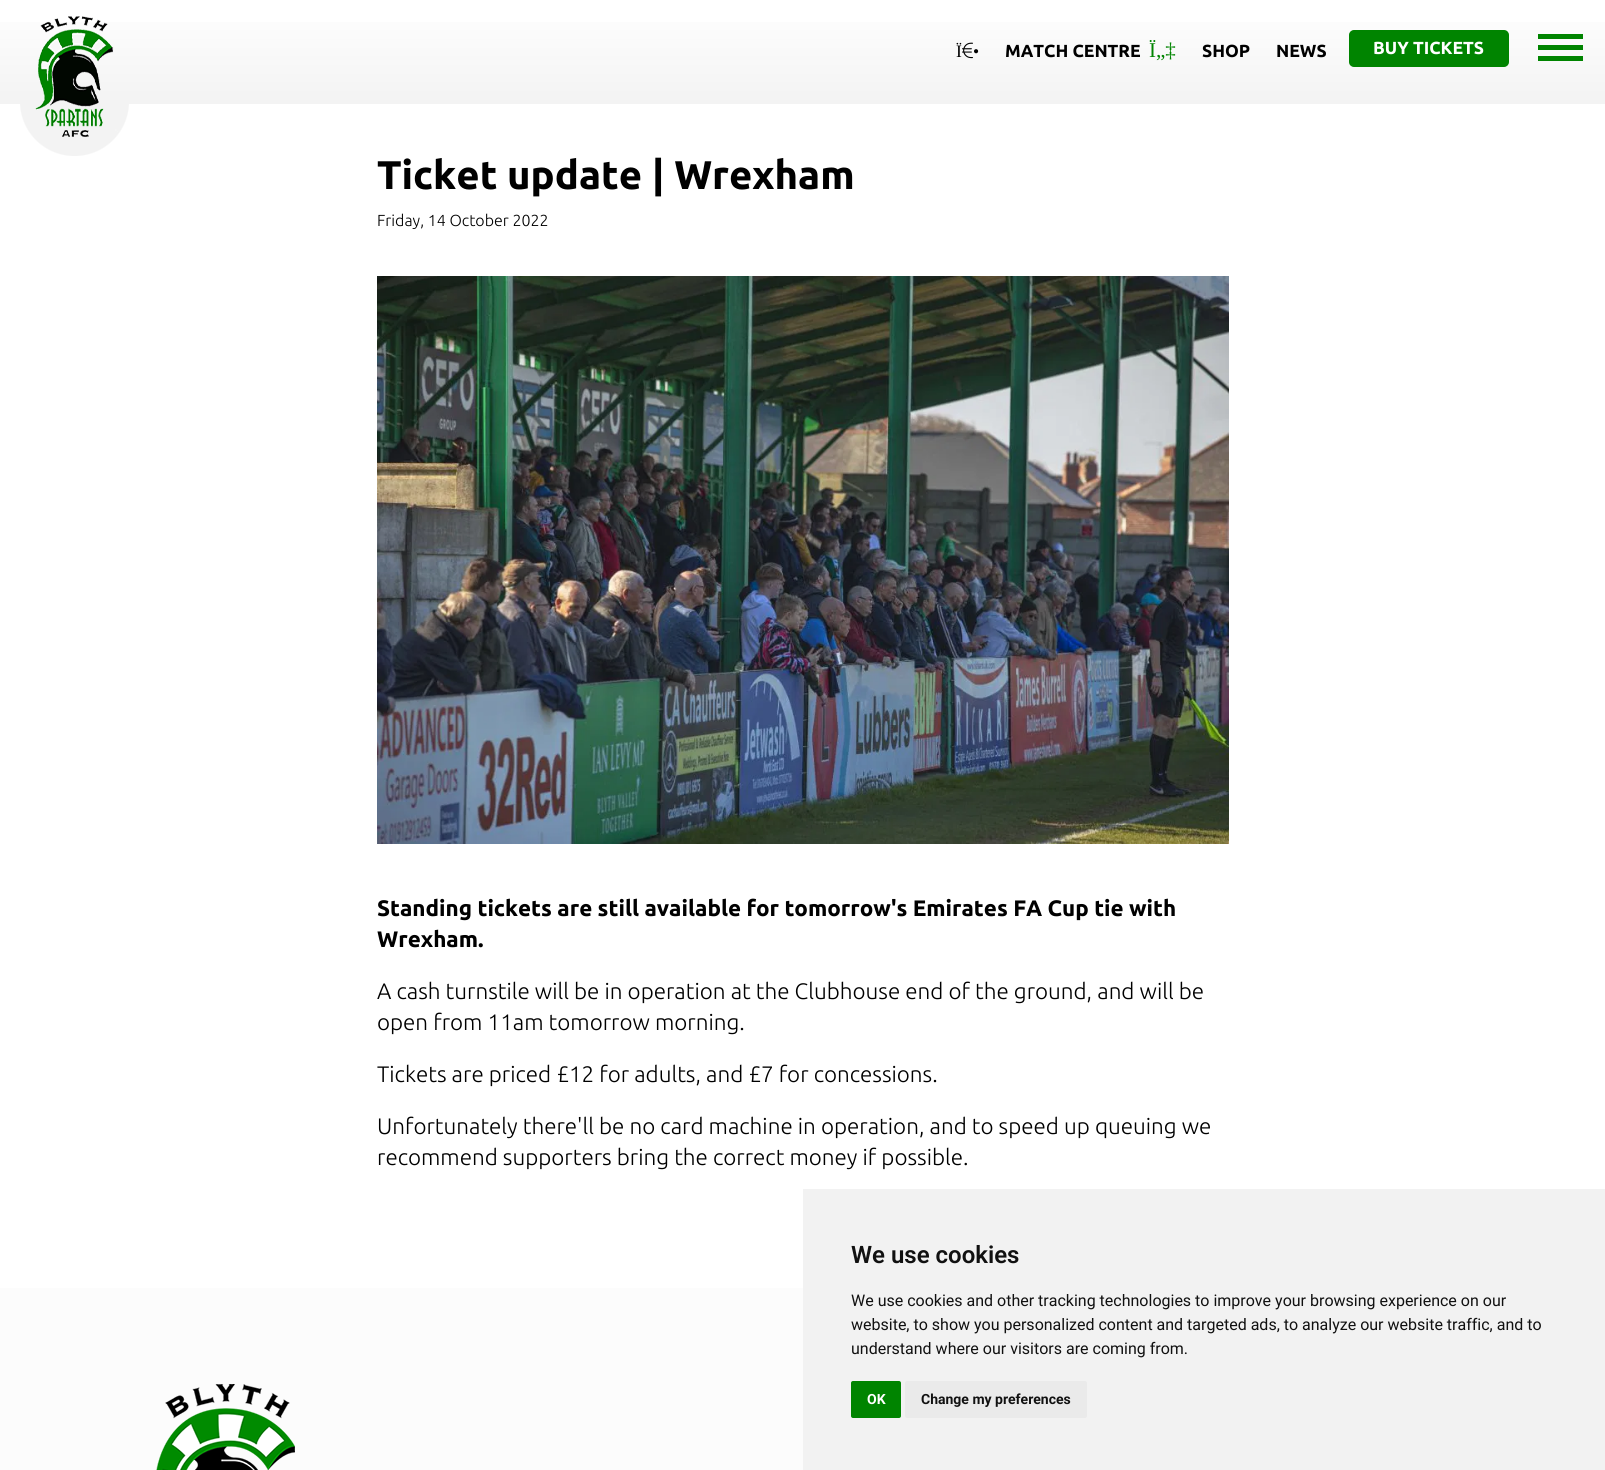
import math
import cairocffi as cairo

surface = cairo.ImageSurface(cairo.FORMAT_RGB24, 1605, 1470)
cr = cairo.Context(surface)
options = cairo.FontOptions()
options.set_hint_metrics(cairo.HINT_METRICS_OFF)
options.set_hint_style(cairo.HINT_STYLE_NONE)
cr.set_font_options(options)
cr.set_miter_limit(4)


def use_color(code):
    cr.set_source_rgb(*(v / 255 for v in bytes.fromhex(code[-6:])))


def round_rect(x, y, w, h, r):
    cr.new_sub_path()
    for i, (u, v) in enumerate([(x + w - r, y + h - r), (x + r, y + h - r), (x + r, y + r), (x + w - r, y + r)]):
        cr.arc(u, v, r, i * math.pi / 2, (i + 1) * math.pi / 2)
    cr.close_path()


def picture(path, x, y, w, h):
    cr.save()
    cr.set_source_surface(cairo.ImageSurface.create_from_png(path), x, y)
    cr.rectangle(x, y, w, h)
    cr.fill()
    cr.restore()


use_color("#ffffff")
cr.paint()
gradient = cairo.LinearGradient(803, 0, 803, 104)
gradient.add_color_stop_rgba(0, 1, 1, 1, 1)
gradient.add_color_stop_rgba(1, 0.953, 0.953, 0.953, 1)
cr.set_source(gradient)
cr.rectangle(0, 22, 1605, 82)
cr.fill()
picture("img1.png", 20, 16, 109, 140)
cr.select_font_face("Liberation Serif")
cr.set_font_size(17.5)
use_color("#000000")
cr.move_to(956, 57)
cr.show_text("Ï")
picture("img2.png", 962, 42, 11, 17)
cr.move_to(973, 57)
cr.show_text("•")
cr.select_font_face("Ubuntu", cairo.FONT_SLANT_NORMAL, cairo.FONT_WEIGHT_BOLD)
cr.move_to(1005, 57)
cr.show_text("MATCH CENTRE")
cr.select_font_face("Liberation Serif")
cr.set_font_size(21)
use_color("#008400")
cr.move_to(1149, 57)
cr.show_text("Ï„‡")
cr.select_font_face("Ubuntu", cairo.FONT_SLANT_NORMAL, cairo.FONT_WEIGHT_BOLD)
cr.set_font_size(17.5)
use_color("#000000")
cr.move_to(1202, 57)
cr.show_text("SHOP")
cr.move_to(1276, 57)
cr.show_text("NEWS")
use_color("#008400")
round_rect(1350, 31, 158, 35, 4)
cr.fill_preserve()
cr.stroke()
use_color("#ffffff")
cr.move_to(1373, 54)
cr.show_text("BUY TICKETS")
use_color("#008400")
cr.rectangle(1538, 34, 45, 5)
cr.fill()
cr.rectangle(1538, 45, 45, 5)
cr.fill()
cr.rectangle(1538, 56, 45, 5)
cr.fill()
cr.set_font_size(40)
use_color("#000000")
cr.move_to(377, 189)
cr.show_text("Ticket update | Wrexham")
cr.select_font_face("Ubuntu Light")
cr.set_font_size(16)
cr.move_to(377, 226)
cr.show_text("Friday, 14 October 2022")
picture("img3.png", 377, 276, 852, 568)
cr.select_font_face("Ubuntu", cairo.FONT_SLANT_NORMAL, cairo.FONT_WEIGHT_BOLD)
cr.set_font_size(22.4)
cr.move_to(377, 916)
cr.show_text("Standing tickets are still available for tomorrow's Emirates FA Cup tie with")
cr.move_to(377, 947)
cr.show_text("Wrexham.")
cr.select_font_face("Ubuntu Light")
cr.move_to(377, 999)
cr.show_text("A cash turnstile will be in operation at the Clubhouse end of the ground, and will be")
cr.move_to(377, 1030)
cr.show_text("open from 11am tomorrow morning.")
cr.move_to(377, 1082)
cr.show_text("Tickets are priced £12 for adults, and £7 for concessions.")
cr.move_to(377, 1134)
cr.show_text("Unfortunately there'll be no card machine in operation, and to speed up queuing we")
cr.move_to(377, 1165)
cr.show_text("recommend supporters bring the correct money if possible.")
use_color("#fcfcfc")
cr.rectangle(0, 1288, 803, 182)
cr.fill()
picture("img4.png", 156, 1384, 139, 86)
use_color("#f2f2f2")
cr.rectangle(803, 1189, 802, 281)
cr.fill()
cr.select_font_face("Roboto SemiBold")
cr.set_font_size(24)
use_color("#111111")
cr.move_to(851, 1263)
cr.show_text("We use cookies")
cr.select_font_face("Roboto")
cr.set_font_size(16)
cr.move_to(851, 1306)
cr.show_text("We use cookies and other tracking technologies to improve your browsing experience on our")
cr.move_to(851, 1330)
cr.show_text("website, to show you personalized content and targeted ads, to analyze our website traffic, and to")
cr.move_to(851, 1354)
cr.show_text("understand where our visitors are coming from.")
use_color("#008400")
round_rect(851, 1381, 50, 37, 2)
cr.fill()
cr.select_font_face("Roboto", cairo.FONT_SLANT_NORMAL, cairo.FONT_WEIGHT_BOLD)
cr.set_font_size(14)
use_color("#ffffff")
cr.move_to(867, 1404)
cr.show_text("OK")
use_color("#eaeaea")
round_rect(905, 1381, 182, 37, 2)
cr.fill()
use_color("#111111")
cr.move_to(921, 1404)
cr.show_text("Change my preferences")
surface.write_to_png("result.png")
